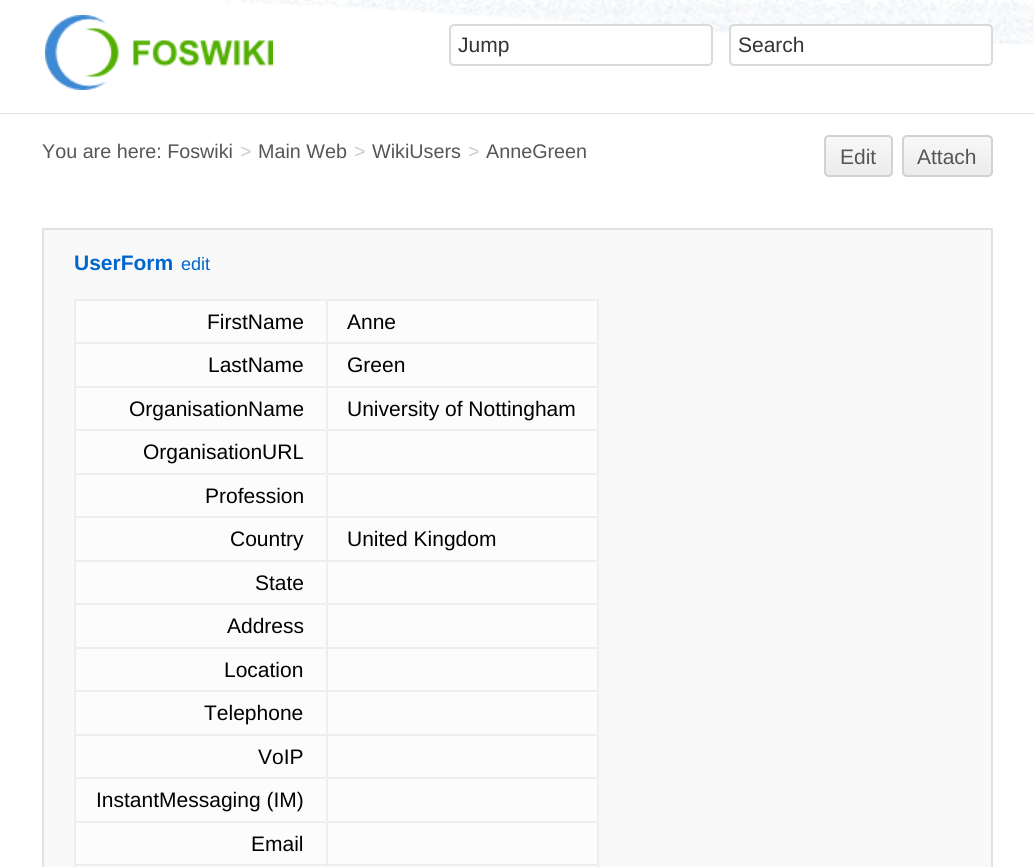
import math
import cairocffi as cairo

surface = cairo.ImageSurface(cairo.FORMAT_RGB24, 1034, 867)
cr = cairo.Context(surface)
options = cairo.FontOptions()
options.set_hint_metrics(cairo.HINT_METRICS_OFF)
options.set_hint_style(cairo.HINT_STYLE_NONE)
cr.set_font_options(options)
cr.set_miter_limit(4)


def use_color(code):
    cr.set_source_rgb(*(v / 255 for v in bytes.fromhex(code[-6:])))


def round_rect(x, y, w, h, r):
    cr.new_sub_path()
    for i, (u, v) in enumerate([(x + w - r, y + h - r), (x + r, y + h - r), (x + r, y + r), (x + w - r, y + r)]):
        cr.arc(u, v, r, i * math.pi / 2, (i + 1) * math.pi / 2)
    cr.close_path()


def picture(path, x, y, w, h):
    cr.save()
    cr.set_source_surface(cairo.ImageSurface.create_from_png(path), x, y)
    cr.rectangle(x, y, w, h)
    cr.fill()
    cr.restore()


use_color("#dfdfdf")
cr.paint()
use_color("#ffffff")
cr.rectangle(0, 0, 1034, 113)
cr.fill()
picture("img1.png", 195, 0, 839, 45)
picture("img2.png", 45, 15, 228, 75)
round_rect(450, 25, 262, 40, 4)
cr.fill_preserve()
use_color("#dadada")
cr.stroke()
cr.select_font_face("Liberation Sans")
cr.set_font_size(21)
use_color("#333333")
cr.move_to(458, 52)
cr.show_text("Jump")
use_color("#ffffff")
round_rect(730, 25, 262, 40, 4)
cr.fill_preserve()
use_color("#dadada")
cr.stroke()
use_color("#333333")
cr.move_to(738, 52)
cr.show_text("Search")
use_color("#ffffff")
cr.rectangle(0, 114, 1034, 753)
cr.fill()
cr.set_font_size(19.75)
use_color("#565656")
cr.move_to(42, 158)
cr.show_text("You are here: Foswiki")
use_color("#cccccc")
cr.move_to(240, 158)
cr.show_text(">")
use_color("#565656")
cr.move_to(258, 158)
cr.show_text("Main Web")
use_color("#cccccc")
cr.move_to(354, 158)
cr.show_text(">")
use_color("#565656")
cr.move_to(372, 158)
cr.show_text("WikiUsers")
use_color("#cccccc")
cr.move_to(468, 158)
cr.show_text(">")
use_color("#565656")
cr.move_to(486, 158)
cr.show_text("AnneGreen")
cr.save()
round_rect(824, 135, 69, 42, 5)
cr.clip()
gradient = cairo.LinearGradient(858, 137, 858, 176)
gradient.add_color_stop_rgba(0, 0.973, 0.973, 0.973, 1)
gradient.add_color_stop_rgba(1, 0.922, 0.922, 0.922, 1)
cr.set_source(gradient)
cr.rectangle(824, 137, 69, 39)
cr.fill()
cr.restore()
round_rect(825, 136, 67, 40, 4)
use_color("#d2d2d2")
cr.stroke()
cr.set_font_size(21)
use_color("#565656")
cr.move_to(840, 164)
cr.show_text("Edit")
cr.save()
round_rect(902, 135, 91, 42, 5)
cr.clip()
gradient = cairo.LinearGradient(947, 137, 947, 176)
gradient.add_color_stop_rgba(0, 0.973, 0.973, 0.973, 1)
gradient.add_color_stop_rgba(1, 0.922, 0.922, 0.922, 1)
cr.set_source(gradient)
cr.rectangle(902, 137, 91, 39)
cr.fill()
cr.restore()
round_rect(903, 136, 89, 40, 4)
use_color("#d2d2d2")
cr.stroke()
use_color("#565656")
cr.move_to(917, 164)
cr.show_text("Attach")
use_color("#f9f9fa")
cr.rectangle(43, 229, 949, 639)
cr.fill_preserve()
use_color("#e2e2e2")
cr.stroke()
cr.select_font_face("Liberation Sans", cairo.FONT_SLANT_NORMAL, cairo.FONT_WEIGHT_BOLD)
use_color("#0066cc")
cr.move_to(74, 270)
cr.show_text("UserForm")
cr.select_font_face("Liberation Sans")
cr.set_font_size(18)
cr.move_to(181, 270)
cr.show_text("edit")
use_color("#fcfcfc")
cr.rectangle(76, 301, 521, 566)
cr.fill()
use_color("#eeeeee")
cr.rectangle(74, 299, 525, 2)
cr.fill()
cr.rectangle(597, 299, 2, 568)
cr.fill()
cr.rectangle(74, 299, 2, 568)
cr.fill()
cr.set_font_size(21)
use_color("#000000")
cr.move_to(207, 329)
cr.show_text("FirstName")
use_color("#eeeeee")
cr.rectangle(326, 342, 273, 2)
cr.fill()
cr.rectangle(326, 386, 273, 2)
cr.fill()
cr.rectangle(326, 429, 273, 2)
cr.fill()
cr.rectangle(326, 473, 273, 2)
cr.fill()
cr.rectangle(326, 516, 273, 2)
cr.fill()
cr.rectangle(326, 560, 273, 2)
cr.fill()
cr.rectangle(326, 603, 273, 2)
cr.fill()
cr.rectangle(326, 647, 273, 2)
cr.fill()
cr.rectangle(326, 690, 273, 2)
cr.fill()
cr.rectangle(326, 734, 273, 2)
cr.fill()
cr.rectangle(326, 777, 273, 2)
cr.fill()
cr.rectangle(326, 821, 273, 2)
cr.fill()
cr.rectangle(326, 864, 273, 2)
cr.fill()
cr.rectangle(326, 864, 2, 3)
cr.fill()
cr.rectangle(74, 864, 253, 2)
cr.fill()
cr.rectangle(326, 821, 2, 45)
cr.fill()
cr.rectangle(74, 821, 253, 2)
cr.fill()
cr.rectangle(326, 777, 2, 45)
cr.fill()
cr.rectangle(74, 777, 253, 2)
cr.fill()
cr.rectangle(326, 734, 2, 45)
cr.fill()
cr.rectangle(74, 734, 253, 2)
cr.fill()
cr.rectangle(326, 690, 2, 45)
cr.fill()
cr.rectangle(74, 690, 253, 2)
cr.fill()
cr.rectangle(326, 647, 2, 45)
cr.fill()
cr.rectangle(74, 647, 253, 2)
cr.fill()
cr.rectangle(326, 603, 2, 45)
cr.fill()
cr.rectangle(74, 603, 253, 2)
cr.fill()
cr.rectangle(326, 560, 2, 45)
cr.fill()
cr.rectangle(74, 560, 253, 2)
cr.fill()
cr.rectangle(326, 516, 2, 45)
cr.fill()
cr.rectangle(74, 516, 253, 2)
cr.fill()
cr.rectangle(326, 473, 2, 45)
cr.fill()
cr.rectangle(74, 473, 253, 2)
cr.fill()
cr.rectangle(326, 429, 2, 45)
cr.fill()
cr.rectangle(74, 429, 253, 2)
cr.fill()
cr.rectangle(326, 386, 2, 45)
cr.fill()
cr.rectangle(74, 386, 253, 2)
cr.fill()
cr.rectangle(326, 342, 2, 45)
cr.fill()
cr.rectangle(74, 342, 253, 2)
cr.fill()
cr.rectangle(326, 299, 2, 45)
cr.fill()
use_color("#000000")
cr.move_to(347, 329)
cr.show_text("Anne")
cr.move_to(208, 372)
cr.show_text("LastName")
cr.move_to(347, 372)
cr.show_text("Green")
cr.move_to(129, 416)
cr.show_text("OrganisationName")
cr.move_to(347, 416)
cr.show_text("University of Nottingham")
cr.move_to(143, 459)
cr.show_text("OrganisationURL")
cr.move_to(205, 503)
cr.show_text("Profession")
cr.move_to(230, 546)
cr.show_text("Country")
cr.move_to(347, 546)
cr.show_text("United Kingdom")
cr.move_to(255, 590)
cr.show_text("State")
cr.move_to(227, 633)
cr.show_text("Address")
cr.move_to(224, 677)
cr.show_text("Location")
cr.move_to(204, 720)
cr.show_text("Telephone")
cr.move_to(258, 764)
cr.show_text("VoIP")
cr.move_to(96, 807)
cr.show_text("InstantMessaging (IM)")
cr.move_to(251, 851)
cr.show_text("Email")
surface.write_to_png("result.png")
